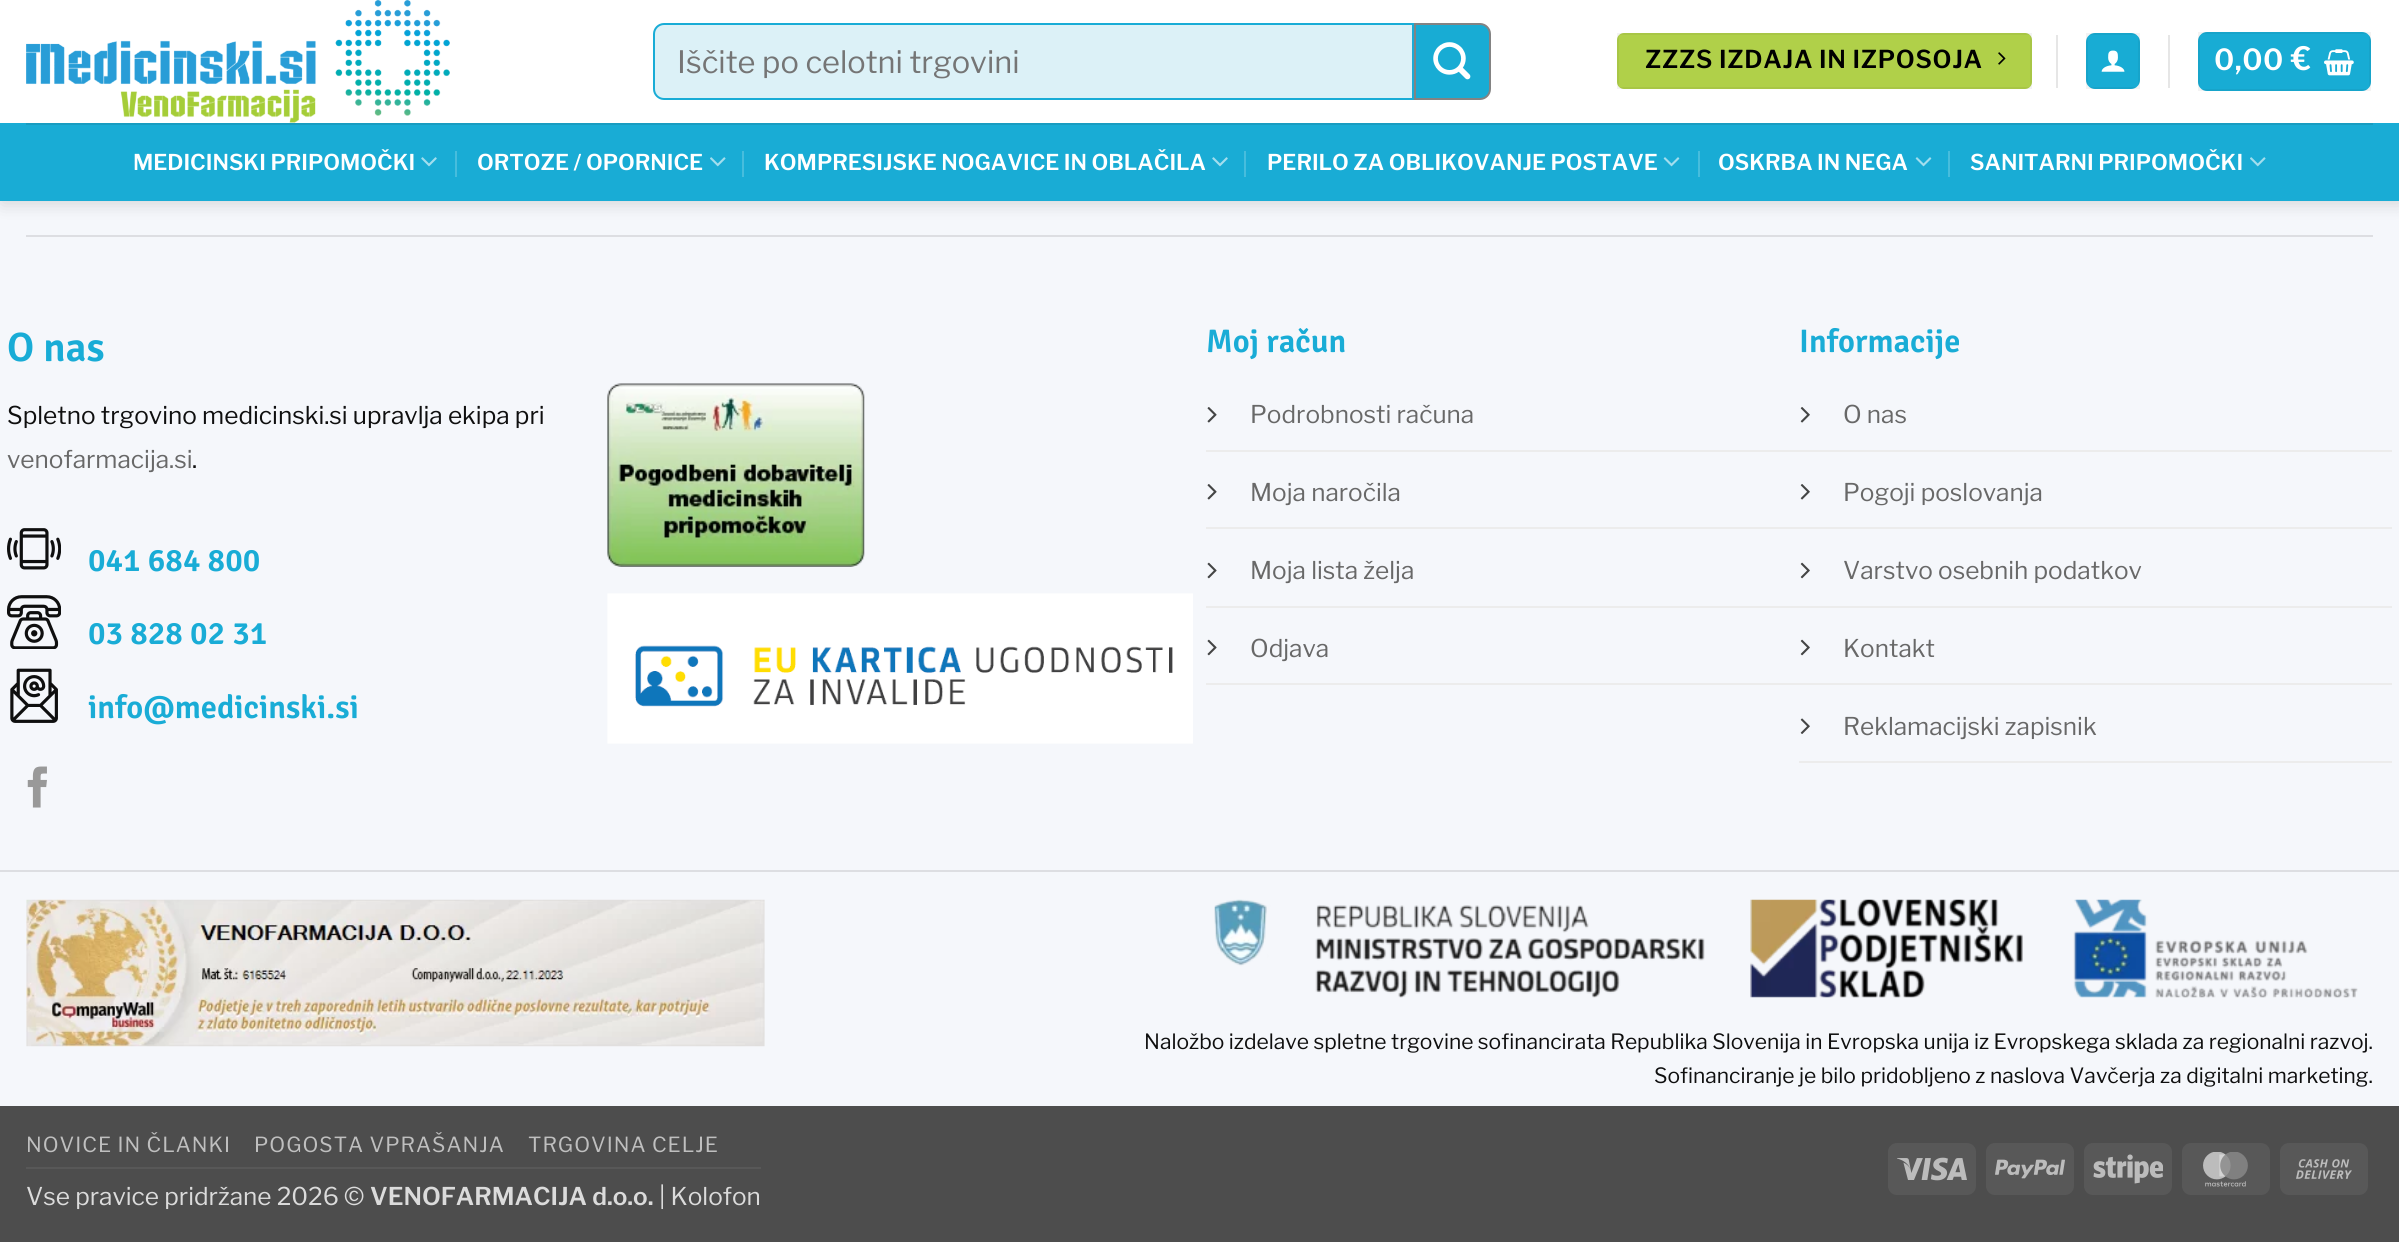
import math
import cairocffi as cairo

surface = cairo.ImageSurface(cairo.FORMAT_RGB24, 2399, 1242)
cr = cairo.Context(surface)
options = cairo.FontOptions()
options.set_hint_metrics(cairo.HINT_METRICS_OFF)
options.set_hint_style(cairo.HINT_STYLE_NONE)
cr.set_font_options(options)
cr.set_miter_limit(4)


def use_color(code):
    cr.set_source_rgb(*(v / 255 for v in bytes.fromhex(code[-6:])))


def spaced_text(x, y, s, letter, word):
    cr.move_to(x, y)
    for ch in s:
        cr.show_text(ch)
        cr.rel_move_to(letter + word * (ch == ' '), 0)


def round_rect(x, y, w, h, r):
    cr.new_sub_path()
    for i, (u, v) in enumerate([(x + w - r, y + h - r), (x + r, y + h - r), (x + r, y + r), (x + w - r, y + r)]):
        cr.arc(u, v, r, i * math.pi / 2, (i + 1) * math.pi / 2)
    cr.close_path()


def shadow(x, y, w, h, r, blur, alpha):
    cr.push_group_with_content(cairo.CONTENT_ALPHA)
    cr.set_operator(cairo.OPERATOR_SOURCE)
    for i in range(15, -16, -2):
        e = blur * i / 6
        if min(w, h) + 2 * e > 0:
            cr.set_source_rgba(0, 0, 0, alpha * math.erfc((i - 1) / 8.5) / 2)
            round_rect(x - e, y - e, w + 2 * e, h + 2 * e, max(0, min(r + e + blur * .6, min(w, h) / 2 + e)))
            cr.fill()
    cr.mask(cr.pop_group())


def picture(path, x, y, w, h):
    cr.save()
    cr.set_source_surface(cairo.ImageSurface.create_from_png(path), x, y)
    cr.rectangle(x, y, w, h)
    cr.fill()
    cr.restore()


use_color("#4d4d4d")
cr.paint()
use_color("#f5f7fb")
cr.rectangle(0, 201, 2399, 905)
cr.fill()
use_color("#000000")
shadow(2, 2, 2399, 201, 0, 9, 0.15)
use_color("#ffffff")
cr.rectangle(0, 0, 2399, 123)
cr.fill()
picture("img1.png", 26, 0, 424, 123)
use_color("#dcf1f7")
cr.new_path()
cr.move_to(664, 24)
cr.line_to(1413, 24)
cr.line_to(1413, 99)
cr.line_to(664, 99)
cr.curve_to(658.5, 99, 654, 94.5, 654, 89)
cr.line_to(654, 34)
cr.curve_to(654, 28.5, 658.5, 24, 664, 24)
cr.close_path()
cr.fill_preserve()
use_color("#19acd6")
cr.stroke()
cr.select_font_face("Libre Franklin")
cr.set_font_size(30.75)
use_color("#757575")
cr.move_to(677, 73)
cr.show_text("Iščite po celotni trgovini")
use_color("#18acd4")
cr.new_path()
cr.move_to(1415, 24)
cr.line_to(1480, 24)
cr.curve_to(1485.5, 24, 1490, 28.5, 1490, 34)
cr.line_to(1490, 89)
cr.curve_to(1490, 94.5, 1485.5, 99, 1480, 99)
cr.line_to(1415, 99)
cr.close_path()
cr.fill_preserve()
use_color("#838383")
cr.stroke()
picture("img2.png", 1433, 42, 38, 38)
use_color("#b0d049")
round_rect(1617, 33, 415, 56, 7)
cr.fill()
cr.rectangle(1618, 34, 413, 54)
cr.set_source_rgba(0, 0, 0, 0.05)
cr.stroke()
cr.select_font_face("Libre Franklin SemiBold")
cr.set_font_size(24.6)
use_color("#000000")
spaced_text(1645, 68, "ZZZS IZDAJA IN IZPOSOJA", 0.7, 0)
picture("img3.png", 1998, 52, 8, 13)
use_color("#e6e6e6")
cr.rectangle(2056, 35, 2, 53)
cr.fill()
use_color("#18acd4")
round_rect(2086, 33, 54, 56, 9)
cr.fill()
cr.rectangle(2087, 34, 52, 54)
cr.set_source_rgba(0, 0, 0, 0.05)
cr.stroke()
picture("img4.png", 2101, 50, 24, 22)
use_color("#e6e6e6")
cr.rectangle(2168, 35, 2, 53)
cr.fill()
use_color("#18acd4")
round_rect(2198, 32, 173, 59, 9)
cr.fill()
cr.rectangle(2199, 33, 171, 57)
cr.set_source_rgba(0, 0, 0, 0.05)
cr.stroke()
cr.set_font_size(29)
use_color("#ffffff")
spaced_text(2214, 70, "0,00", 0.5, 0)
cr.set_font_size(32)
spaced_text(2291, 70, "€", 0.5, 0)
picture("img5.png", 2324, 49, 30, 27)
use_color("#19acd5")
cr.rectangle(0, 123, 2399, 78)
cr.fill()
use_color("#189cc1")
cr.rectangle(26, 123, 2347, 2)
cr.fill()
cr.set_font_size(21.75)
use_color("#ffffff")
cr.move_to(133, 170)
cr.show_text("MEDICINSKI PRIPOMOČKI")
picture("img6.png", 421, 157, 16, 10)
use_color("#47bddd")
cr.rectangle(455, 151, 2, 26)
cr.fill()
use_color("#ffffff")
cr.move_to(477, 170)
cr.show_text("ORTOZE / OPORNICE")
picture("img7.png", 710, 157, 16, 10)
use_color("#47bddd")
cr.rectangle(742, 151, 2, 26)
cr.fill()
use_color("#ffffff")
cr.move_to(764, 170)
cr.show_text("KOMPRESIJSKE NOGAVICE IN OBLAČILA")
picture("img6.png", 1212, 157, 16, 10)
use_color("#47bddd")
cr.rectangle(1244, 151, 2, 26)
cr.fill()
use_color("#ffffff")
cr.move_to(1267, 170)
cr.show_text("PERILO ZA OBLIKOVANJE POSTAVE")
picture("img8.png", 1663, 157, 17, 10)
use_color("#47bddd")
cr.rectangle(1698, 151, 2, 26)
cr.fill()
use_color("#ffffff")
cr.move_to(1718, 170)
cr.show_text("OSKRBA IN NEGA")
picture("img8.png", 1915, 157, 17, 10)
use_color("#47bddd")
cr.rectangle(1948, 151, 2, 26)
cr.fill()
use_color("#ffffff")
cr.move_to(1970, 170)
cr.show_text("SANITARNI PRIPOMOČKI")
picture("img7.png", 2250, 157, 16, 10)
use_color("#dddee2")
cr.rectangle(26, 235, 2347, 2)
cr.fill()
cr.select_font_face("Signika SemiBold")
cr.set_font_size(41)
use_color("#19acd6")
cr.move_to(7, 361)
cr.show_text("O nas")
cr.select_font_face("Libre Franklin")
cr.set_font_size(24.4)
use_color("#0f0f0f")
cr.move_to(7, 424)
cr.show_text("Spletno trgovino medicinski.si upravlja ekipa pri")
use_color("#686868")
cr.move_to(7, 468)
cr.show_text("venofarmacija.si")
use_color("#0f0f0f")
cr.move_to(192, 468)
cr.show_text(".")
picture("img9.png", 7, 528, 54, 42)
cr.select_font_face("Signika SemiBold")
cr.set_font_size(32.5)
use_color("#19acd6")
cr.move_to(88, 571)
cr.show_text("041 684 800")
picture("img10.png", 7, 595, 54, 54)
cr.move_to(88, 644)
cr.show_text("03 828 02 31")
picture("img11.png", 10, 668, 48, 55)
cr.move_to(88, 718)
cr.show_text("info@medicinski.si")
picture("img12.png", 27, 766, 20, 42)
picture("img13.png", 607, 383, 258, 184)
picture("img14.png", 607, 593, 586, 151)
cr.move_to(1206, 352)
cr.show_text("Moj račun")
use_color("#ececec")
cr.rectangle(1206, 450, 1186, 2)
cr.fill()
picture("img15.png", 1207, 407, 10, 16)
cr.select_font_face("Libre Franklin")
cr.set_font_size(24.4)
use_color("#686868")
cr.move_to(1250, 423)
cr.show_text("Podrobnosti računa")
use_color("#ececec")
cr.rectangle(1206, 527, 1186, 2)
cr.fill()
picture("img15.png", 1207, 484, 10, 16)
use_color("#686868")
cr.move_to(1250, 501)
cr.show_text("Moja naročila")
use_color("#ececec")
cr.rectangle(1206, 606, 1186, 2)
cr.fill()
picture("img16.png", 1207, 562, 10, 17)
use_color("#686868")
cr.move_to(1250, 579)
cr.show_text("Moja lista želja")
use_color("#ececec")
cr.rectangle(1206, 683, 1186, 2)
cr.fill()
picture("img16.png", 1207, 639, 10, 17)
use_color("#686868")
cr.move_to(1250, 657)
cr.show_text("Odjava")
cr.select_font_face("Signika SemiBold")
cr.set_font_size(32.5)
use_color("#19acd6")
cr.move_to(1799, 352)
cr.show_text("Informacije")
picture("img17.png", 1800, 407, 10, 16)
cr.select_font_face("Libre Franklin")
cr.set_font_size(24.4)
use_color("#686868")
cr.move_to(1843, 423)
cr.show_text("O nas")
picture("img17.png", 1800, 484, 10, 16)
cr.move_to(1843, 501)
cr.show_text("Pogoji poslovanja")
picture("img18.png", 1800, 562, 10, 17)
cr.move_to(1843, 579)
cr.show_text("Varstvo osebnih podatkov")
picture("img18.png", 1800, 639, 10, 17)
cr.move_to(1843, 657)
cr.show_text("Kontakt")
use_color("#ececec")
cr.rectangle(1799, 761, 593, 2)
cr.fill()
picture("img19.png", 1800, 718, 10, 16)
use_color("#686868")
cr.move_to(1843, 735)
cr.show_text("Reklamacijski zapisnik")
use_color("#dddee2")
cr.rectangle(0, 870, 2399, 2)
cr.fill()
picture("img20.png", 26, 899, 739, 148)
picture("img21.png", 1214, 899, 1144, 99)
cr.set_font_size(21)
use_color("#0f0f0f")
cr.move_to(1144, 1049)
cr.show_text("Naložbo izdelave spletne trgovine sofinancirata Republika Slovenija in Evropska unija iz Evropskega sklada za regionalni razvoj.")
cr.move_to(1654, 1083)
cr.show_text("Sofinanciranje je bilo pridobljeno z naslova Vavčerja za digitalni marketing.")
use_color("#585858")
cr.rectangle(26, 1167, 735, 2)
cr.fill()
cr.set_font_size(20.75)
use_color("#bfbfbf")
spaced_text(26, 1152, "NOVICE IN ČLANKI", 1, 0)
spaced_text(254, 1152, "POGOSTA VPRAŠANJA", 1, 0)
spaced_text(528, 1152, "TRGOVINA CELJE", 1, 0)
cr.set_font_size(24.4)
use_color("#dbdbdb")
cr.move_to(26, 1205)
cr.show_text("Vse pravice pridržane 2026 ©")
cr.select_font_face("Libre Franklin SemiBold")
cr.move_to(370, 1205)
cr.show_text("VENOFARMACIJA d.o.o.")
cr.select_font_face("Libre Franklin")
cr.move_to(659, 1205)
cr.show_text("| Kolofon")
use_color("#585858")
round_rect(1888, 1143, 88, 52, 9)
cr.fill()
picture("img22.png", 1897, 1157, 70, 24)
round_rect(1986, 1143, 88, 52, 9)
cr.fill()
picture("img23.png", 1995, 1159, 70, 20)
round_rect(2084, 1143, 88, 52, 9)
cr.fill()
picture("img24.png", 2093, 1154, 70, 30)
round_rect(2182, 1143, 88, 52, 9)
cr.fill()
picture("img25.png", 2203, 1152, 45, 35)
round_rect(2280, 1143, 88, 52, 9)
cr.fill()
picture("img26.png", 2296, 1159, 56, 20)
surface.write_to_png("result.png")
